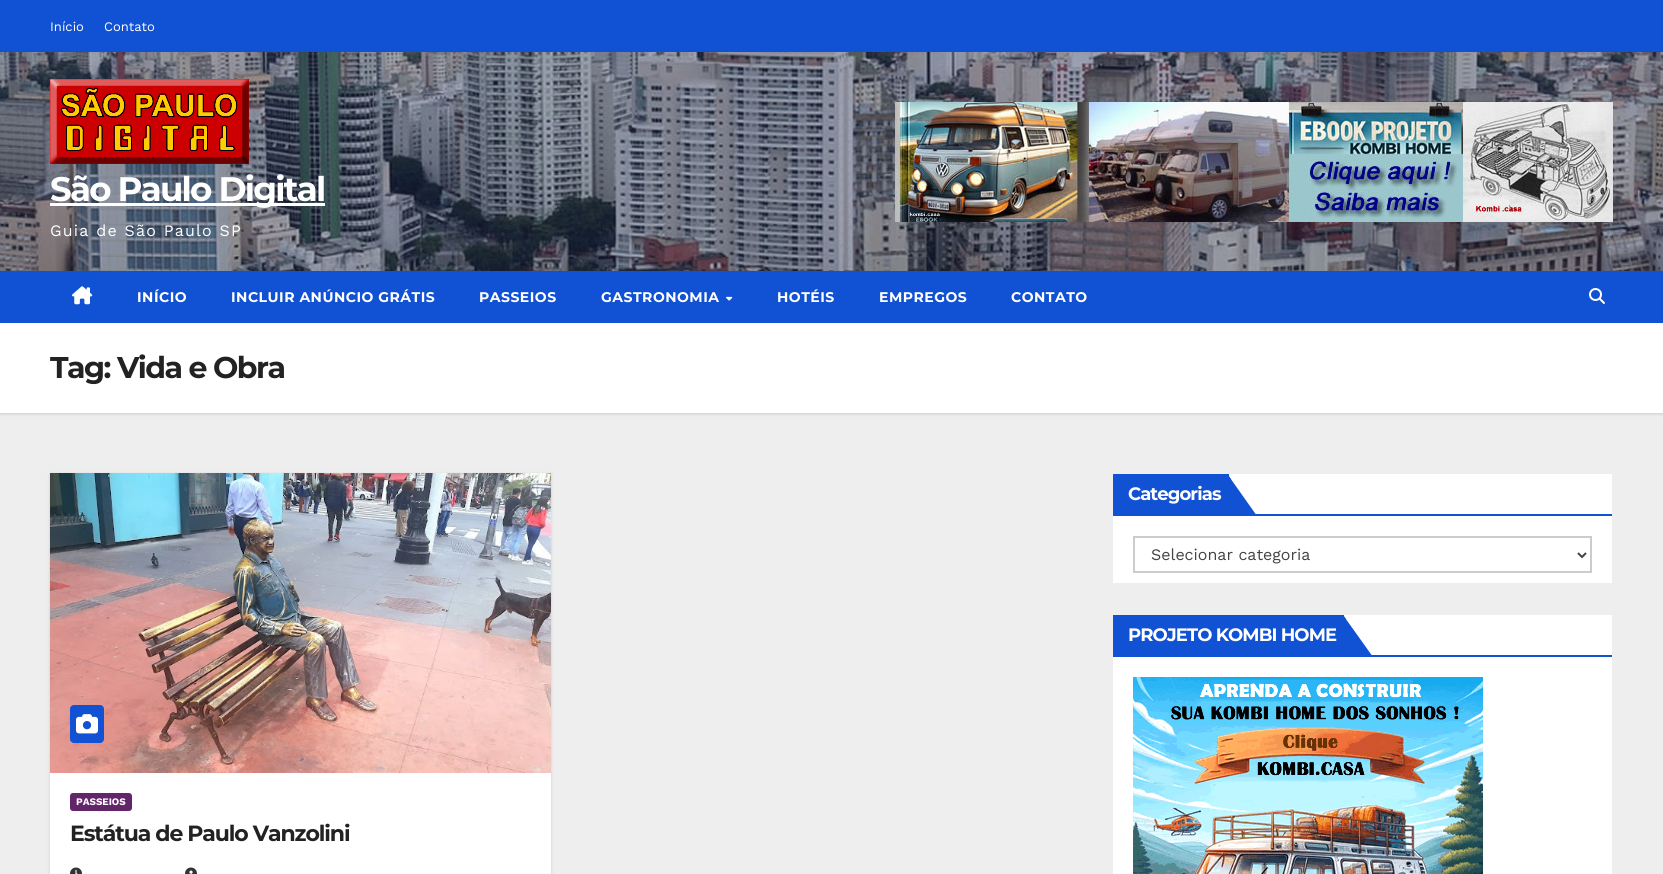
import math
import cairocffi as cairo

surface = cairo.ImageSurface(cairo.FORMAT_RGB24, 1663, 874)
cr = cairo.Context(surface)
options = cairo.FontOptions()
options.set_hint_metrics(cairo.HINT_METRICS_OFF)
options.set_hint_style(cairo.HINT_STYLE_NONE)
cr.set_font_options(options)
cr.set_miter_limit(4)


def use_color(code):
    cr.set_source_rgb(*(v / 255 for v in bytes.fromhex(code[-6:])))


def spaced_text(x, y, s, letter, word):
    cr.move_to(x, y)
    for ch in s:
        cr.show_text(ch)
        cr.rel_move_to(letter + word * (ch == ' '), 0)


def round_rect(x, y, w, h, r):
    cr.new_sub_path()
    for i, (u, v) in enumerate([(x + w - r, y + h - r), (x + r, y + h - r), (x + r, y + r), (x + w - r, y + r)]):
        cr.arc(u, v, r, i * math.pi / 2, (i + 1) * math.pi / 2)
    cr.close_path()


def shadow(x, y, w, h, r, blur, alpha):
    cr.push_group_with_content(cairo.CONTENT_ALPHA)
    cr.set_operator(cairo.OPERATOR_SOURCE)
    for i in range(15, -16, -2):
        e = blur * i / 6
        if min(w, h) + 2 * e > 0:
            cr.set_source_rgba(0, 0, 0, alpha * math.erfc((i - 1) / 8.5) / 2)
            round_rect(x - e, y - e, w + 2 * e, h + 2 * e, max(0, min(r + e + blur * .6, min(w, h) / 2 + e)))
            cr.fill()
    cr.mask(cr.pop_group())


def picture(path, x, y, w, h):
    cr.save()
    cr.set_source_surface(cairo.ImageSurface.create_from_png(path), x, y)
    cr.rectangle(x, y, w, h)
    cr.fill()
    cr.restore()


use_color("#eeeeee")
cr.paint()
use_color("#1151d3")
cr.rectangle(0, 0, 1663, 52)
cr.fill()
cr.select_font_face("Work Sans")
cr.set_font_size(13)
use_color("#ffffff")
cr.move_to(50, 31)
cr.show_text("Início")
cr.move_to(104, 31)
cr.show_text("Contato")
picture("img1.png", 0, 52, 1663, 219)
picture("img2.png", 50, 79, 199, 85)
cr.rectangle(50, 203, 275, 3)
cr.fill()
cr.select_font_face("Montserrat", cairo.FONT_SLANT_NORMAL, cairo.FONT_WEIGHT_BOLD)
cr.set_font_size(34)
spaced_text(50, 201, "São Paulo Digital", -1.75, 0)
cr.select_font_face("Work Sans")
cr.set_font_size(16)
spaced_text(50, 236, "Guia de São Paulo SP", 1.2, 0)
picture("img3.png", 895, 102, 718, 120)
use_color("#000000")
shadow(0, 324, 1663, 90, 0, 1.5, 0.15)
use_color("#1151d3")
cr.rectangle(0, 271, 1663, 52)
cr.fill()
picture("img4.png", 72, 286, 21, 19)
cr.select_font_face("Montserrat", cairo.FONT_SLANT_NORMAL, cairo.FONT_WEIGHT_BOLD)
cr.set_font_size(14)
use_color("#ffffff")
spaced_text(137, 302, "INÍCIO", 0.5, 0)
spaced_text(231, 302, "INCLUIR ANÚNCIO GRÁTIS", 0.5, 0)
spaced_text(479, 302, "PASSEIOS", 0.5, 0)
spaced_text(601, 302, "GASTRONOMIA", 0.5, 0)
picture("img5.png", 726, 296, 7, 5)
spaced_text(777, 302, "HOTÉIS", 0.5, 0)
spaced_text(879, 302, "EMPREGOS", 0.5, 0)
spaced_text(1011, 302, "CONTATO", 0.5, 0)
picture("img6.png", 1589, 288, 16, 16)
cr.rectangle(0, 323, 1663, 90)
cr.fill()
cr.set_font_size(30)
use_color("#222222")
spaced_text(50, 378, "Tag: Vida e Obra", -1.5, 0)
use_color("#ffffff")
cr.rectangle(1113, 474, 499, 109)
cr.fill()
use_color("#1151d3")
cr.rectangle(1113, 514, 499, 2)
cr.fill()
cr.rectangle(1113, 474, 116, 40)
cr.fill()
cr.set_font_size(18)
use_color("#ffffff")
spaced_text(1128, 500, "Categorias", -0.9, 0)
use_color("#1151d3")
cr.new_path()
cr.move_to(1257, 516)
cr.line_to(1228, 516)
cr.line_to(1228, 475)
cr.close_path()
cr.fill()
cr.new_path()
cr.move_to(1228, 516)
cr.line_to(1231, 513)
cr.line_to(1231, 479)
cr.line_to(1228, 475)
cr.close_path()
cr.fill()
cr.rectangle(1134, 537, 457, 35)
use_color("#cccccc")
cr.stroke()
cr.new_path()
cr.move_to(1578, 553)
cr.line_to(1582, 557)
cr.line_to(1586, 553)
use_color("#444444")
cr.stroke()
cr.select_font_face("Work Sans")
cr.set_font_size(16)
cr.move_to(1151, 560)
cr.show_text("Selecionar categoria")
use_color("#ffffff")
cr.rectangle(1113, 615, 499, 259)
cr.fill()
use_color("#1151d3")
cr.rectangle(1113, 655, 499, 2)
cr.fill()
cr.rectangle(1113, 615, 231, 40)
cr.fill()
cr.select_font_face("Montserrat", cairo.FONT_SLANT_NORMAL, cairo.FONT_WEIGHT_BOLD)
cr.set_font_size(18)
use_color("#ffffff")
spaced_text(1128, 641, "PROJETO KOMBI HOME", -0.9, 0)
use_color("#1151d3")
cr.new_path()
cr.move_to(1343, 615)
cr.line_to(1373, 657)
cr.line_to(1343, 657)
cr.close_path()
cr.fill()
cr.new_path()
cr.move_to(1343, 615)
cr.line_to(1346, 619)
cr.line_to(1346, 654)
cr.line_to(1343, 657)
cr.close_path()
cr.fill()
picture("img7.png", 1133, 677, 350, 197)
use_color("#000000")
shadow(50, 474, 501, 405, 0, 1.5, 0.15)
use_color("#ffffff")
cr.rectangle(50, 773, 501, 101)
cr.fill()
picture("img8.png", 50, 473, 501, 300)
use_color("#1151d3")
round_rect(70, 705, 34, 38, 4)
cr.fill()
picture("img9.png", 76, 714, 22, 20)
use_color("#622569")
round_rect(70, 793, 62, 18, 3)
cr.fill()
cr.select_font_face("Work Sans", cairo.FONT_SLANT_NORMAL, cairo.FONT_WEIGHT_BOLD)
cr.set_font_size(10)
use_color("#ffffff")
cr.move_to(76, 805)
cr.show_text("PASSEIOS")
cr.select_font_face("Montserrat", cairo.FONT_SLANT_NORMAL, cairo.FONT_WEIGHT_BOLD)
cr.set_font_size(22)
use_color("#222222")
spaced_text(70, 841, "Estátua de Paulo Vanzolini", -1.1, 0)
picture("img10.png", 70, 867, 12, 7)
picture("img11.png", 185, 867, 12, 7)
surface.write_to_png("result.png")
